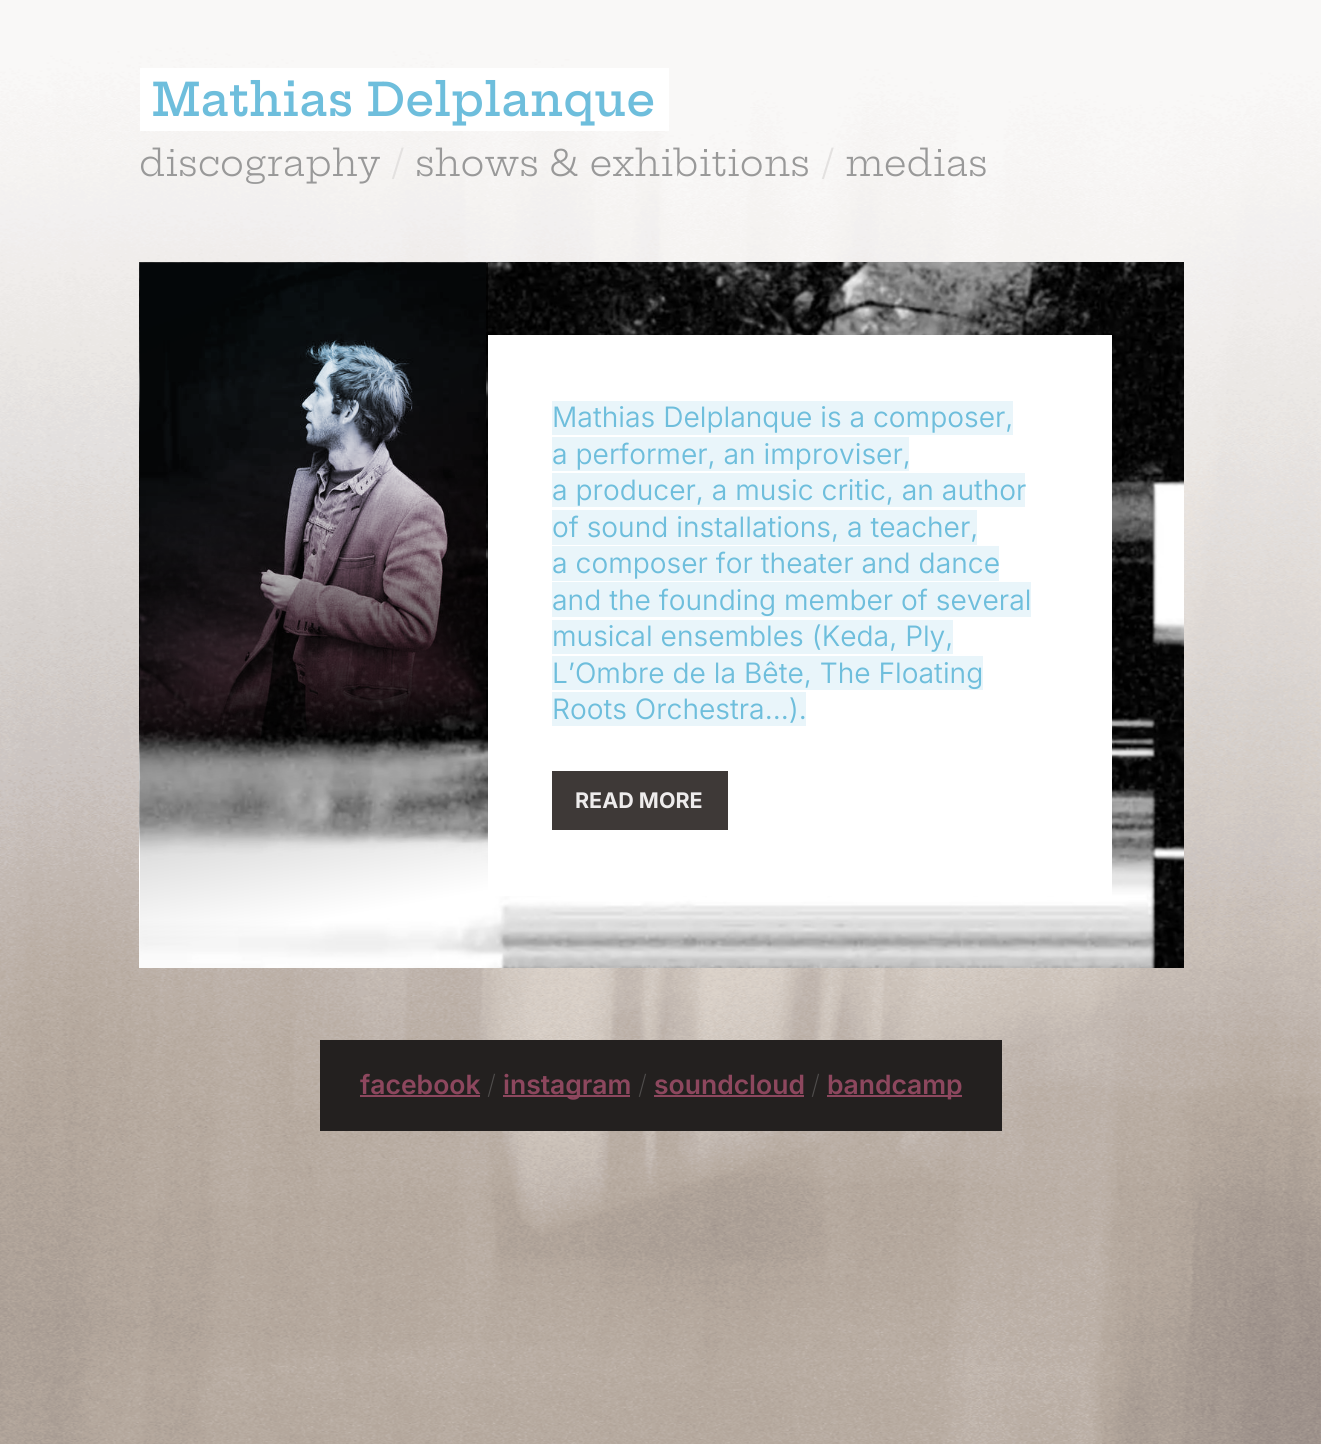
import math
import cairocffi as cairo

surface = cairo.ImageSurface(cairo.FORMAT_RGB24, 1321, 1444)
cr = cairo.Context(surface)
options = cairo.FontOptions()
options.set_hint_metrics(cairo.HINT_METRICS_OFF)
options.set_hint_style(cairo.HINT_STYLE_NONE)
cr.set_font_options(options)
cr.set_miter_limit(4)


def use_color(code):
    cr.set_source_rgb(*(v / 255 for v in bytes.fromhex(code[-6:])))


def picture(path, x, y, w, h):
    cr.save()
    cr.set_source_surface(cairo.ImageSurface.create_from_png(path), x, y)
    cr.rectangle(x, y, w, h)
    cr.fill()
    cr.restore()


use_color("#ffffff")
cr.paint()
picture("img1.png", 0, 0, 1321, 1444)
use_color("#ffffff")
cr.rectangle(140, 68, 529, 63)
cr.fill()
cr.select_font_face("Hepta Slab Medium")
cr.set_font_size(45.6)
use_color("#6ebedc")
cr.move_to(152, 116)
cr.show_text("Mathias Delplanque")
cr.select_font_face("Hepta Slab")
cr.set_font_size(36)
use_color("#999999")
cr.move_to(139, 176)
cr.show_text("discography")
use_color("#e3e1e0")
cr.move_to(391, 176)
cr.show_text("/")
use_color("#999999")
cr.move_to(415, 176)
cr.show_text("shows & exhibitions")
use_color("#e3e1e0")
cr.move_to(821, 176)
cr.show_text("/")
use_color("#999999")
cr.move_to(845, 176)
cr.show_text("medias")
picture("img2.png", 139, 262, 1045, 706)
picture("img3.png", 139, 262, 347, 480)
use_color("#ffffff")
cr.rectangle(488, 335, 624, 561)
cr.fill()
use_color("#e9f5fa")
cr.rectangle(552, 401, 461, 34)
cr.fill()
cr.select_font_face("Inter Light")
cr.set_font_size(28.1)
use_color("#6ebedc")
cr.move_to(552, 427)
cr.show_text("Mathias Delplanque is a composer,")
use_color("#e9f5fa")
cr.rectangle(552, 437, 357, 34)
cr.fill()
use_color("#6ebedc")
cr.move_to(552, 464)
cr.show_text("a performer, an improviser,")
use_color("#e9f5fa")
cr.rectangle(552, 473, 473, 34)
cr.fill()
use_color("#6ebedc")
cr.move_to(552, 500)
cr.show_text("a producer, a music critic, an author")
use_color("#e9f5fa")
cr.rectangle(552, 510, 425, 35)
cr.fill()
use_color("#6ebedc")
cr.move_to(552, 537)
cr.show_text("of sound installations, a teacher,")
use_color("#e9f5fa")
cr.rectangle(552, 546, 447, 35)
cr.fill()
use_color("#6ebedc")
cr.move_to(552, 573)
cr.show_text("a composer for theater and dance")
use_color("#e9f5fa")
cr.rectangle(552, 582, 479, 35)
cr.fill()
use_color("#6ebedc")
cr.move_to(552, 610)
cr.show_text("and the founding member of several")
use_color("#e9f5fa")
cr.rectangle(552, 620, 401, 34)
cr.fill()
use_color("#6ebedc")
cr.move_to(552, 646)
cr.show_text("musical ensembles (Keda, Ply,")
use_color("#e9f5fa")
cr.rectangle(552, 656, 431, 34)
cr.fill()
use_color("#6ebedc")
cr.move_to(552, 683)
cr.show_text("L’Ombre de la Bête, The Floating")
use_color("#e9f5fa")
cr.rectangle(552, 692, 254, 34)
cr.fill()
use_color("#6ebedc")
cr.move_to(552, 719)
cr.show_text("Roots Orchestra…).")
use_color("#3e3937")
cr.rectangle(552, 771, 176, 59)
cr.fill()
cr.select_font_face("Inter", cairo.FONT_SLANT_NORMAL, cairo.FONT_WEIGHT_BOLD)
cr.set_font_size(21.5)
use_color("#eeecec")
cr.move_to(575, 808)
cr.show_text("READ MORE")
use_color("#23201f")
cr.rectangle(320, 1040, 682, 91)
cr.fill()
cr.select_font_face("Inter SemiBold")
cr.set_font_size(26.5)
use_color("#8d475e")
cr.move_to(360, 1094)
cr.show_text("facebook")
cr.rectangle(360, 1095, 120, 2)
cr.fill()
cr.select_font_face("Inter ExtraLight")
use_color("#4f4d4c")
cr.move_to(487, 1094)
cr.show_text("/")
use_color("#8d475e")
cr.rectangle(503, 1095, 127, 2)
cr.fill()
cr.select_font_face("Inter SemiBold")
cr.move_to(503, 1094)
cr.show_text("instagram")
cr.select_font_face("Inter ExtraLight")
use_color("#4f4d4c")
cr.move_to(638, 1094)
cr.show_text("/")
cr.select_font_face("Inter SemiBold")
use_color("#8d475e")
cr.move_to(654, 1094)
cr.show_text("soundcloud")
cr.rectangle(654, 1095, 150, 2)
cr.fill()
cr.select_font_face("Inter ExtraLight")
use_color("#4f4d4c")
cr.move_to(811, 1094)
cr.show_text("/")
use_color("#8d475e")
cr.rectangle(827, 1095, 135, 2)
cr.fill()
cr.select_font_face("Inter SemiBold")
cr.move_to(827, 1094)
cr.show_text("bandcamp")
surface.write_to_png("result.png")
